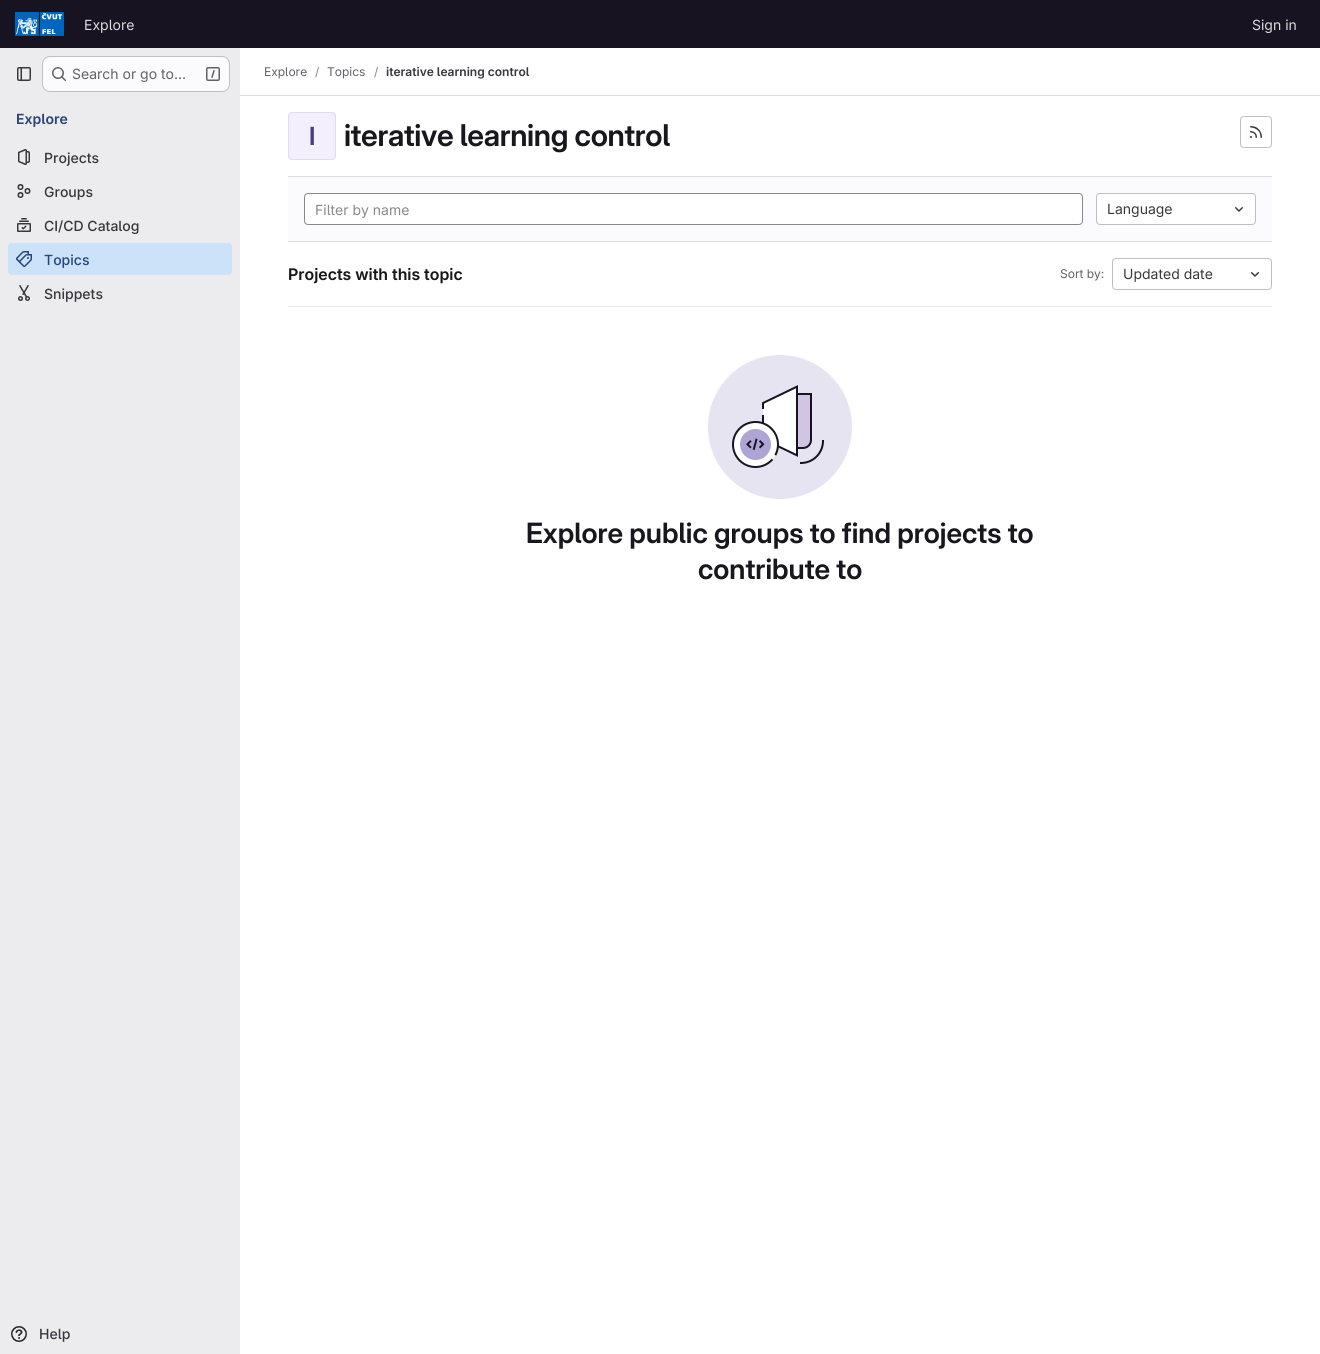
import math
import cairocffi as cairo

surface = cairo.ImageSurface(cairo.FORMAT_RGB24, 1320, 1354)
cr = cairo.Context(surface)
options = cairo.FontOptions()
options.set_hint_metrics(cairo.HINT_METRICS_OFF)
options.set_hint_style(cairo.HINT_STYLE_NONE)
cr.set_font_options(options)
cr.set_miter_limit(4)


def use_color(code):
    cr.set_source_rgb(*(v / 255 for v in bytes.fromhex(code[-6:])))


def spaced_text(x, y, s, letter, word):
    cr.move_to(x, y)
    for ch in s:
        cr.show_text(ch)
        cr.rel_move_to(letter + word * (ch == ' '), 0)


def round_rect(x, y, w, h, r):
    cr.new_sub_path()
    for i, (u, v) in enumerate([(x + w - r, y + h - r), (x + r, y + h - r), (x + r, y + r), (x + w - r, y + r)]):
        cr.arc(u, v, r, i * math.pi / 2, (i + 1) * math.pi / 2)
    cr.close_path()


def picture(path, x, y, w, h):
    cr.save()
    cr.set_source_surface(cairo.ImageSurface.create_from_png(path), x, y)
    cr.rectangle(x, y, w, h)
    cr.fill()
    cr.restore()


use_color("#ffffff")
cr.paint()
use_color("#171321")
cr.rectangle(0, 0, 1320, 48)
cr.fill()
picture("img1.png", 15, 12, 49, 24)
cr.select_font_face("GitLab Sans")
cr.set_font_size(14)
use_color("#dcdcde")
cr.move_to(84, 30)
cr.show_text("Explore")
cr.move_to(1252, 30)
cr.show_text("Sign in")
use_color("#ececef")
cr.rectangle(0, 48, 240, 1306)
cr.fill()
picture("img2.png", 17, 67, 14, 14)
use_color("#fbfafd")
round_rect(42, 56, 188, 36, 8)
cr.fill()
round_rect(42.5, 56.5, 187, 35, 7.5)
cr.set_source_rgba(0.02, 0.02, 0.024, 0.24)
cr.set_line_width(1)
cr.stroke()
picture("img3.png", 52, 67, 14, 14)
use_color("#626168")
cr.move_to(72, 79)
cr.show_text("Search or go to…")
picture("img4.png", 206, 67, 14, 14)
cr.select_font_face("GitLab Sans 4 SemiBold")
use_color("#284779")
cr.move_to(16, 124)
cr.show_text("Explore")
picture("img5.png", 18, 149, 12, 16)
cr.select_font_face("GitLab Sans Medium")
use_color("#3a383f")
cr.move_to(44, 163)
cr.show_text("Projects")
picture("img6.png", 17, 184, 14, 14)
cr.move_to(44, 197)
cr.show_text("Groups")
picture("img7.png", 17, 218, 14, 14)
cr.move_to(44, 231)
cr.show_text("CI/CD Catalog")
use_color("#cbe2f9")
round_rect(8, 243, 224, 32, 4)
cr.fill()
picture("img8.png", 16, 251, 16, 16)
use_color("#284779")
cr.move_to(44, 265)
cr.show_text("Topics")
picture("img9.png", 18, 285, 12, 16)
use_color("#3a383f")
cr.move_to(44, 299)
cr.show_text("Snippets")
picture("img10.png", 11, 1326, 16, 16)
cr.move_to(39, 1339)
cr.show_text("Help")
use_color("#dcdcde")
cr.rectangle(240, 95, 1080, 1)
cr.fill()
cr.select_font_face("GitLab Sans")
cr.set_font_size(12)
use_color("#626168")
cr.move_to(264, 76)
cr.show_text("Explore")
use_color("#89888d")
cr.move_to(315, 76)
cr.show_text("/")
use_color("#626168")
cr.move_to(327, 76)
cr.show_text("Topics")
use_color("#89888d")
cr.move_to(374, 76)
cr.show_text("/")
cr.select_font_face("GitLab Sans 4 SemiBold")
use_color("#3a383f")
cr.move_to(386, 76)
cr.show_text("iterative learning control")
use_color("#f3effc")
round_rect(288, 112, 48, 48, 4)
cr.fill()
round_rect(288.5, 112.5, 47, 47, 3.5)
cr.set_source_rgba(0.02, 0.02, 0.024, 0.08)
cr.stroke()
cr.select_font_face("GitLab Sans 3 SemiBold")
cr.set_font_size(25)
use_color("#493c83")
spaced_text(309, 145, "I", -0.3, 0)
cr.select_font_face("GitLab Sans SemiBold")
cr.set_font_size(30)
use_color("#18171d")
spaced_text(344, 146, "iterative learning control", -0.3, 0)
round_rect(1240.5, 116.5, 31, 31, 3.5)
use_color("#bfbfc3")
cr.stroke()
picture("img11.png", 1250, 126, 12, 12)
use_color("#fbfafd")
cr.rectangle(288, 177, 984, 64)
cr.fill()
use_color("#dcdcde")
cr.rectangle(288, 176, 984, 1)
cr.fill()
cr.rectangle(288, 241, 984, 1)
cr.fill()
use_color("#ffffff")
round_rect(304.5, 193.5, 778, 31, 3.5)
cr.fill_preserve()
use_color("#89888d")
cr.stroke()
cr.select_font_face("GitLab Sans")
cr.set_font_size(14)
cr.move_to(315, 215)
cr.show_text("Filter by name")
use_color("#ffffff")
round_rect(1096.5, 193.5, 159, 31, 3.5)
cr.fill_preserve()
use_color("#bfbfc3")
cr.stroke()
use_color("#3a383f")
cr.move_to(1107, 214)
cr.show_text("Language")
picture("img12.png", 1235, 207, 8, 5)
use_color("#ececef")
cr.rectangle(288, 306, 984, 1)
cr.fill()
cr.select_font_face("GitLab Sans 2 SemiBold")
cr.set_font_size(16)
use_color("#18171d")
cr.move_to(288, 280)
cr.show_text("Projects with this topic")
cr.select_font_face("GitLab Sans")
cr.set_font_size(12)
use_color("#626168")
cr.move_to(1060, 278)
cr.show_text("Sort by:")
round_rect(1112.5, 258.5, 159, 31, 3.5)
use_color("#bfbfc3")
cr.stroke()
cr.set_font_size(14)
use_color("#3a383f")
cr.move_to(1123, 279)
cr.show_text("Updated date")
picture("img12.png", 1251, 272, 8, 5)
picture("img13.png", 708, 355, 144, 144)
cr.select_font_face("GitLab Sans SemiBold")
cr.set_font_size(28)
use_color("#18171d")
cr.move_to(526, 543)
cr.show_text("Explore public groups to find projects to")
cr.move_to(698, 579)
cr.show_text("contribute to")
surface.write_to_png("result.png")
